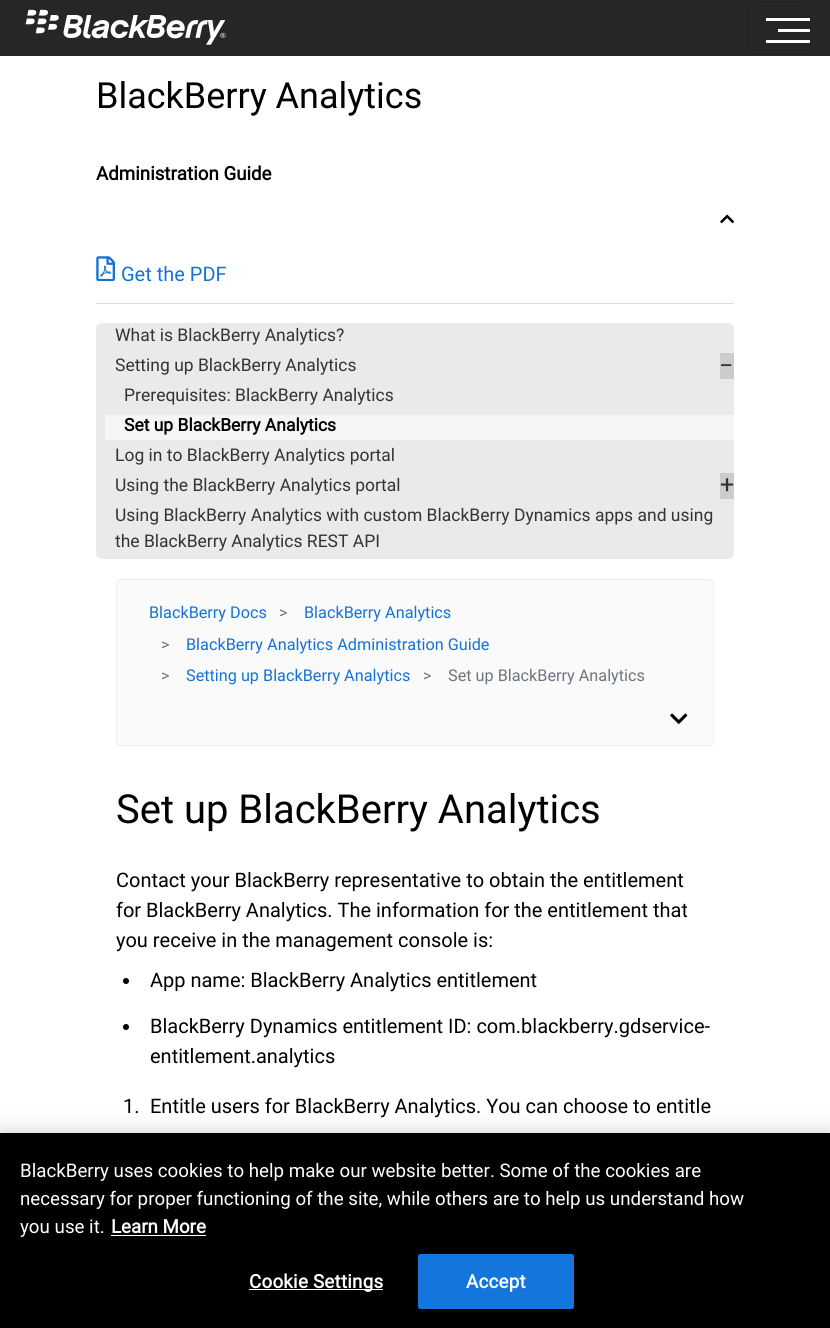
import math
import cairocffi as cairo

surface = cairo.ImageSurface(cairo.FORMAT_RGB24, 830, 1328)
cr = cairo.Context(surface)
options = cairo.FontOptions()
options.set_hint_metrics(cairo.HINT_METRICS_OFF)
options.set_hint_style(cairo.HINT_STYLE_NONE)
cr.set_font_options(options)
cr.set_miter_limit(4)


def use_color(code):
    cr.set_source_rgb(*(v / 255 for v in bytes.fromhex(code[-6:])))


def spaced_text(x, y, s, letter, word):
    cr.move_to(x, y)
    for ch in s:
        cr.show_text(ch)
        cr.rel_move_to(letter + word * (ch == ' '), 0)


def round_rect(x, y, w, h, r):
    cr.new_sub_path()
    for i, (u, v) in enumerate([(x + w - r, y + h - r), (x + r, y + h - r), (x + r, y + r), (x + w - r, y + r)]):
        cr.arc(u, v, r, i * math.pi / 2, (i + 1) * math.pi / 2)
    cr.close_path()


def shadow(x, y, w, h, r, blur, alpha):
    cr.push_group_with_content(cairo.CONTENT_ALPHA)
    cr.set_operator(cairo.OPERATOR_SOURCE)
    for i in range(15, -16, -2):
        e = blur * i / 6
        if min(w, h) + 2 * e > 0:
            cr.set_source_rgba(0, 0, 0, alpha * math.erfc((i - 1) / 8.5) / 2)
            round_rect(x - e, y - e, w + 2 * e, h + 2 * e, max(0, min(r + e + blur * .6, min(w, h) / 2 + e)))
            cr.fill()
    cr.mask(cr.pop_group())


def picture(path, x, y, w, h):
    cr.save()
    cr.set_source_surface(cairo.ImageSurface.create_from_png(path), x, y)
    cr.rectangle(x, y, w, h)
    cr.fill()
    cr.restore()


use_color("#ffffff")
cr.paint()
use_color("#262626")
cr.rectangle(0, 0, 830, 56)
cr.fill()
picture("img1.png", 25, 9, 201, 36)
round_rect(748.5, 5.5, 62, 45, 4.5)
use_color("#222222")
cr.set_line_width(1)
cr.stroke()
use_color("#ffffff")
cr.rectangle(766, 18, 44, 3)
cr.fill()
cr.rectangle(778, 29, 32, 3)
cr.fill()
cr.rectangle(766, 40, 44, 3)
cr.fill()
cr.select_font_face("Roboto")
cr.set_font_size(36)
use_color("#000000")
cr.move_to(96, 108)
cr.show_text("BlackBerry Analytics")
cr.select_font_face("Roboto", cairo.FONT_SLANT_NORMAL, cairo.FONT_WEIGHT_BOLD)
cr.set_font_size(18.75)
cr.move_to(96, 180)
cr.show_text("Administration Guide")
picture("img2.png", 720, 214, 14, 10)
use_color("#dddddd")
cr.rectangle(96, 303, 638, 1)
cr.fill()
picture("img3.png", 96, 256, 19, 25)
cr.select_font_face("Roboto")
cr.set_font_size(20)
use_color("#1472d7")
cr.move_to(121, 281)
cr.show_text("Get the PDF")
use_color("#eaeaea")
round_rect(96, 323, 638, 236, 6)
cr.fill()
cr.set_font_size(17.5)
use_color("#333333")
cr.move_to(115, 341)
cr.show_text("What is BlackBerry Analytics?")
cr.move_to(115, 371)
cr.show_text("Setting up BlackBerry Analytics")
use_color("#cccccc")
cr.rectangle(720, 353, 14, 26)
cr.fill()
cr.set_font_size(25)
use_color("#333333")
cr.move_to(719, 374)
cr.show_text("−")
cr.set_font_size(17.5)
cr.move_to(124, 401)
cr.show_text("Prerequisites: BlackBerry Analytics")
use_color("#f5f5f5")
cr.rectangle(105, 415, 629, 25)
cr.fill()
cr.select_font_face("Roboto", cairo.FONT_SLANT_NORMAL, cairo.FONT_WEIGHT_BOLD)
use_color("#000000")
cr.move_to(124, 431)
cr.show_text("Set up BlackBerry Analytics")
cr.select_font_face("Roboto")
use_color("#333333")
cr.move_to(115, 461)
cr.show_text("Log in to BlackBerry Analytics portal")
cr.move_to(115, 491)
cr.show_text("Using the BlackBerry Analytics portal")
use_color("#cccccc")
cr.rectangle(720, 473, 14, 26)
cr.fill()
cr.set_font_size(25)
use_color("#333333")
cr.move_to(720, 493)
cr.show_text("+")
cr.set_font_size(17.5)
cr.move_to(115, 521)
cr.show_text("Using BlackBerry Analytics with custom BlackBerry Dynamics apps and using")
cr.move_to(115, 547)
cr.show_text("the BlackBerry Analytics REST API")
use_color("#fafafa")
round_rect(116.5, 579.5, 597, 166, 3.5)
cr.fill_preserve()
use_color("#eeeeee")
cr.stroke()
cr.set_font_size(16.25)
use_color("#1472d7")
cr.move_to(149, 618)
cr.show_text("BlackBerry Docs")
use_color("#6c757d")
cr.move_to(279, 618)
cr.show_text(">")
use_color("#1472d7")
cr.move_to(304, 618)
cr.show_text("BlackBerry Analytics")
use_color("#6c757d")
cr.move_to(161, 650)
cr.show_text(">")
use_color("#1472d7")
cr.move_to(186, 650)
cr.show_text("BlackBerry Analytics Administration Guide")
use_color("#6c757d")
cr.move_to(161, 681)
cr.show_text(">")
use_color("#1472d7")
cr.move_to(186, 681)
cr.show_text("Setting up BlackBerry Analytics")
use_color("#6c757d")
cr.move_to(423, 681)
cr.show_text(">")
cr.move_to(448, 681)
cr.show_text("Set up BlackBerry Analytics")
picture("img4.png", 670, 713, 18, 11)
cr.set_font_size(40)
use_color("#000000")
cr.move_to(116, 823)
cr.show_text("Set up BlackBerry Analytics")
cr.set_font_size(20)
cr.move_to(116, 887)
cr.show_text("Contact your BlackBerry representative to obtain the entitlement")
cr.move_to(116, 917)
cr.show_text("for BlackBerry Analytics. The information for the entitlement that")
cr.move_to(116, 947)
cr.show_text("you receive in the management console is:")
cr.new_path()
cr.arc(126, 981, 3, 0, 2 * math.pi)
cr.fill()
cr.move_to(150, 987)
cr.show_text("App name: BlackBerry Analytics entitlement")
cr.new_path()
cr.arc(126, 1027, 3, 0, 2 * math.pi)
cr.fill()
cr.move_to(150, 1033)
cr.show_text("BlackBerry Dynamics entitlement ID: com.blackberry.gdservice-")
cr.move_to(150, 1063)
cr.show_text("entitlement.analytics")
cr.move_to(123, 1113)
cr.show_text("1.")
cr.move_to(150, 1113)
cr.show_text("Entitle users for BlackBerry Analytics. You can choose to entitle")
use_color("#000000")
shadow(0, 1133, 830, 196, 0, 11, 0.2)
use_color("#000000")
cr.rectangle(0, 1133, 830, 195)
cr.fill()
cr.set_font_size(18.75)
use_color("#ffffff")
cr.move_to(20, 1177)
cr.show_text("BlackBerry uses cookies to help make our website better. Some of the cookies are")
cr.move_to(20, 1205)
cr.show_text("necessary for proper functioning of the site, while others are to help us understand how")
cr.move_to(20, 1233)
cr.show_text("you use it.")
cr.select_font_face("Roboto", cairo.FONT_SLANT_NORMAL, cairo.FONT_WEIGHT_BOLD)
cr.move_to(111, 1233)
cr.show_text("Learn More")
cr.rectangle(111, 1235, 95, 1)
cr.fill()
cr.rectangle(249, 1289, 134, 1)
cr.fill()
spaced_text(249, 1288, "Cookie Settings", 0.25, 0)
use_color("#1475dc")
round_rect(418.5, 1254.5, 155, 54, 2)
cr.fill_preserve()
cr.stroke()
use_color("#ffffff")
spaced_text(466, 1288, "Accept", 0.25, 0)
surface.write_to_png("result.png")
